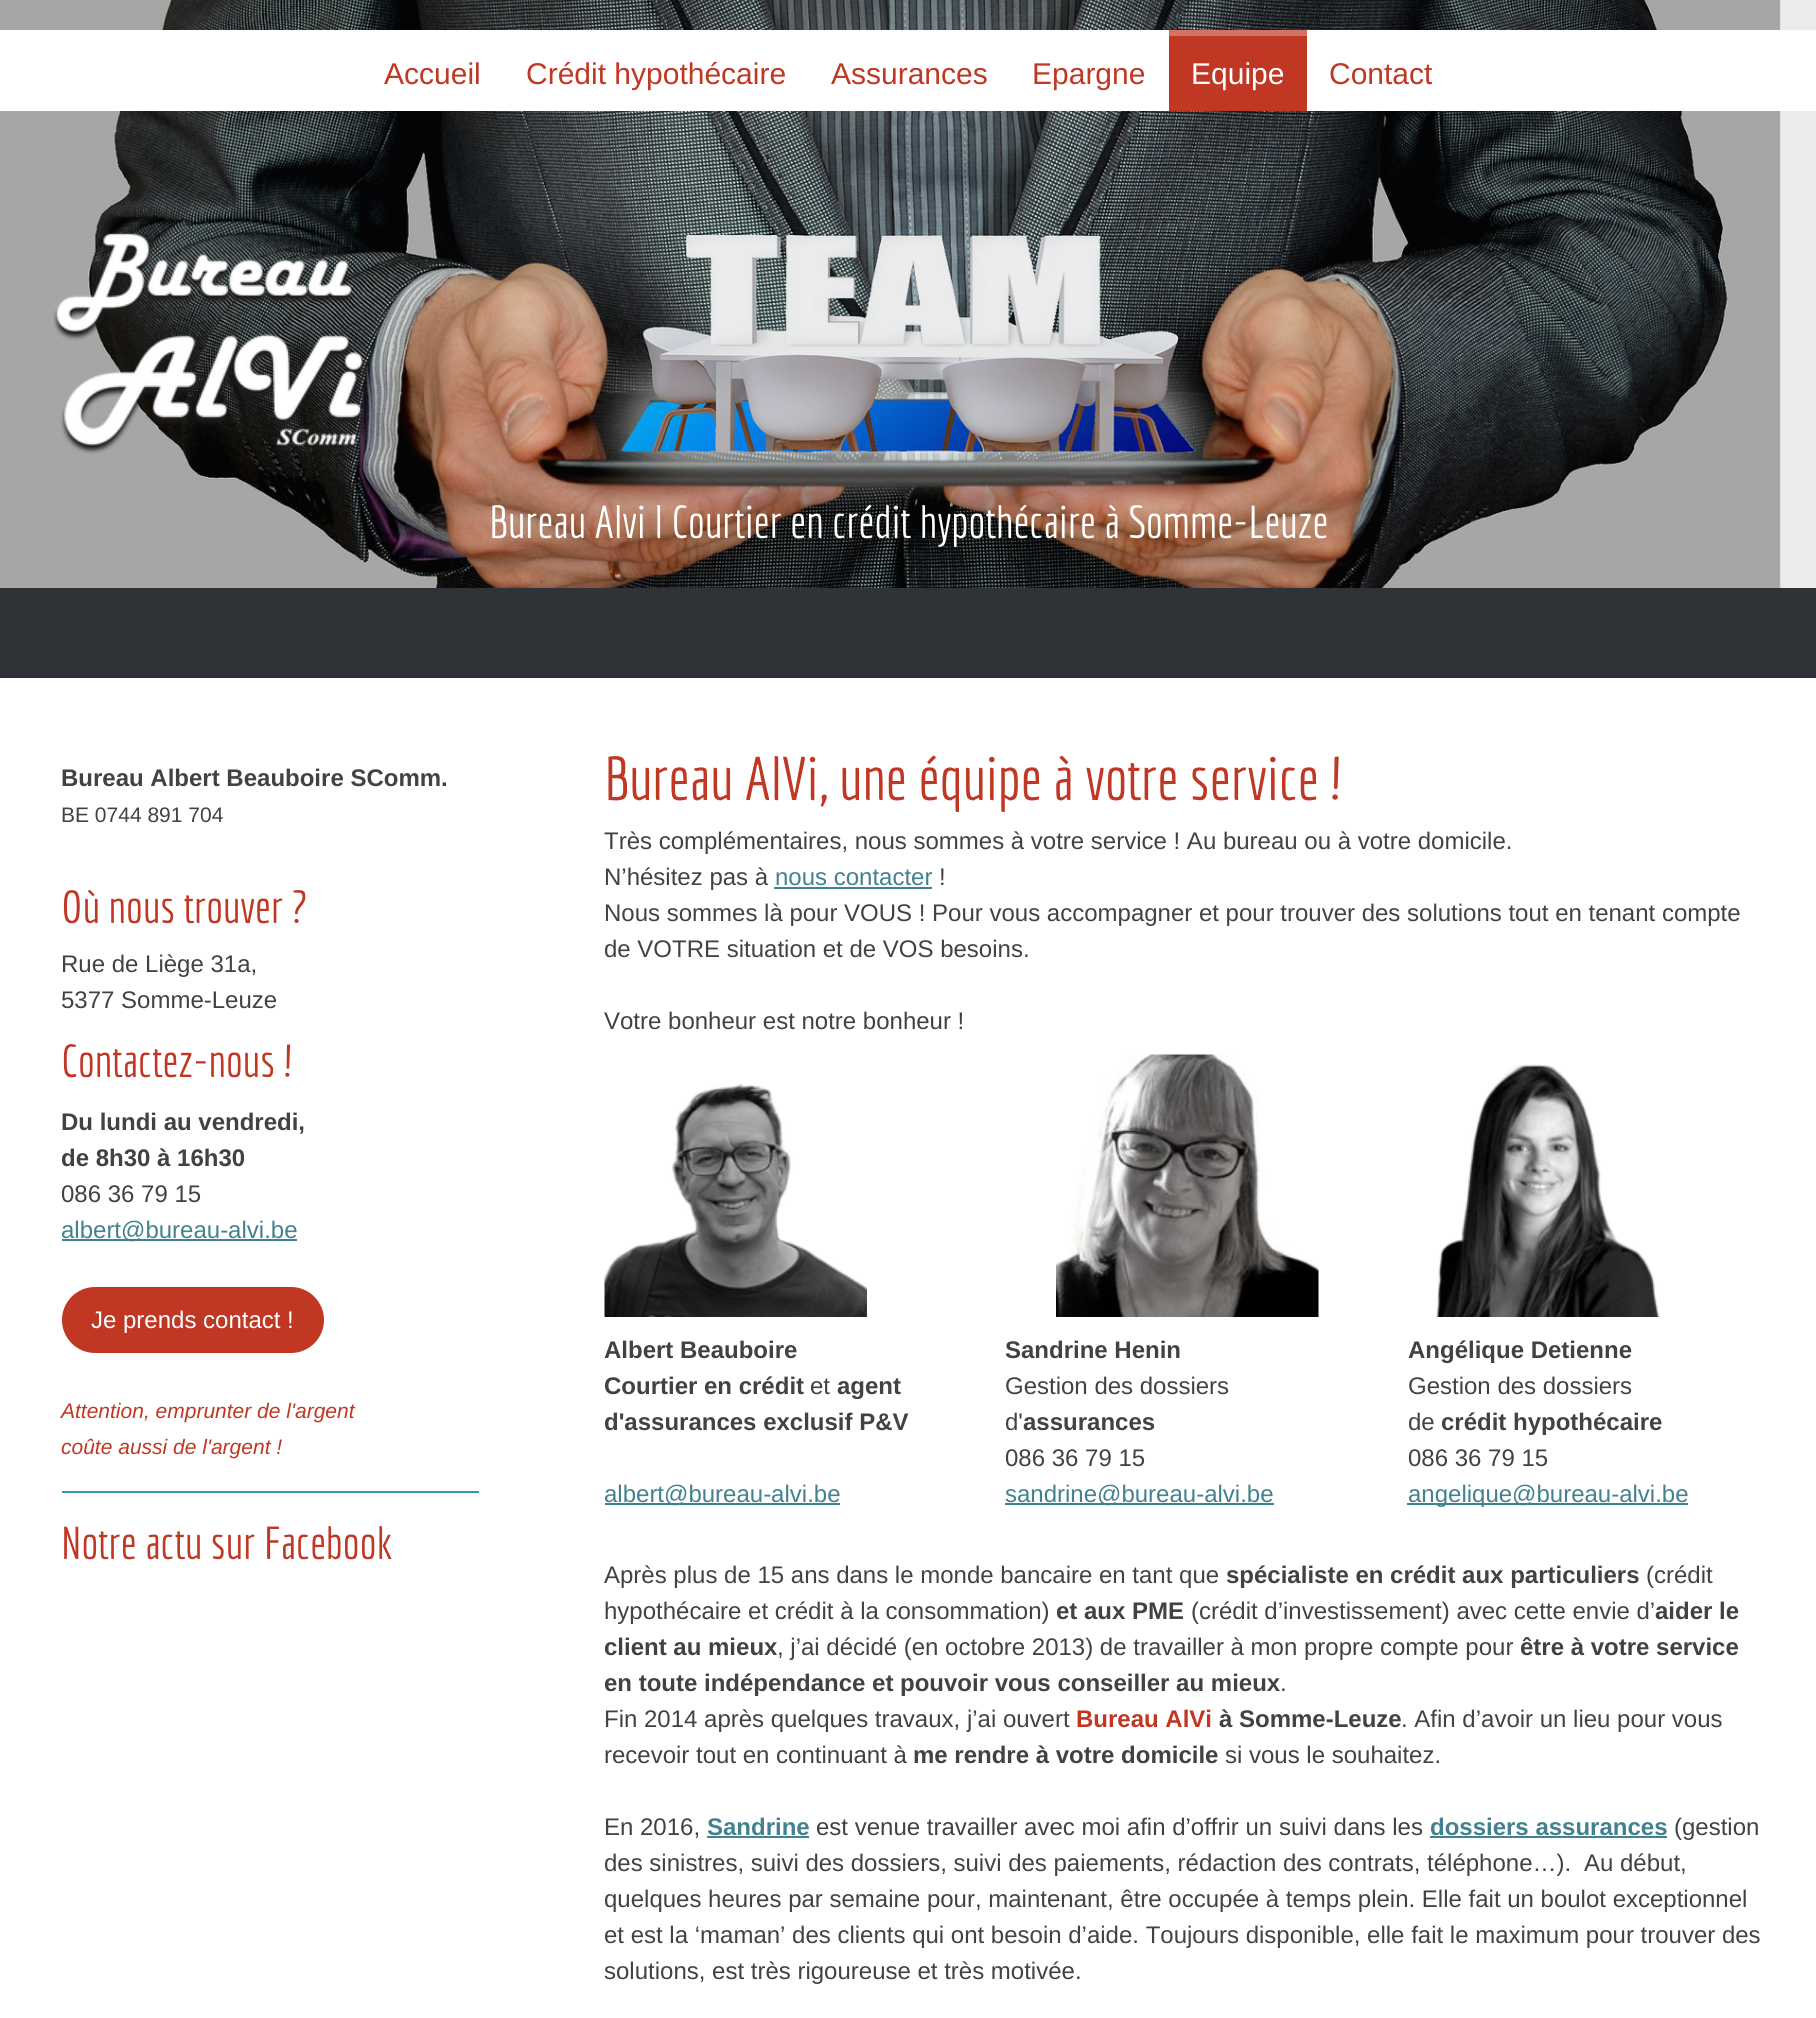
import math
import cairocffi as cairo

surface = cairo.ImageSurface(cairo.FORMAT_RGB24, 1816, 2018)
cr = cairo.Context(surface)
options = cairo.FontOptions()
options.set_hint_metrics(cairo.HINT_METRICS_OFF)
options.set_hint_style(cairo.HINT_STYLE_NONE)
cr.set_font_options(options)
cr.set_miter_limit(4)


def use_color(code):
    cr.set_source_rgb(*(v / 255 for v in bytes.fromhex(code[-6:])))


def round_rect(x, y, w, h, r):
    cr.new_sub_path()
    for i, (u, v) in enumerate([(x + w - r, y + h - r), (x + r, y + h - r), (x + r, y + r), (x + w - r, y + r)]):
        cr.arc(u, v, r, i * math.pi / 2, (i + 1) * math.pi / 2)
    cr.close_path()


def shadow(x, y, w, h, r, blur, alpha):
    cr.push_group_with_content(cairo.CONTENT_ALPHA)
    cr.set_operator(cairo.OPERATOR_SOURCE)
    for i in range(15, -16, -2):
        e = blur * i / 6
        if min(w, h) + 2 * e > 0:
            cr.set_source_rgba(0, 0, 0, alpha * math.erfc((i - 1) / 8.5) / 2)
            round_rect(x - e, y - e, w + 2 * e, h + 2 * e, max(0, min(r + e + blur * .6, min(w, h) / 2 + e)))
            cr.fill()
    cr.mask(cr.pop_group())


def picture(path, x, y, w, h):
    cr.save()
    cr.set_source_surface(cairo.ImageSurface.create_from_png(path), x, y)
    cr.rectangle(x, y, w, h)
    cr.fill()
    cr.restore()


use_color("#ffffff")
cr.paint()
picture("img1.png", 0, 0, 1781, 588)
use_color("#2f3237")
cr.rectangle(0, 588, 1816, 90)
cr.fill()
cr.set_source_rgba(0.184, 0.196, 0.216, 0.09)
cr.rectangle(0, 0, 1816, 588)
cr.fill()
use_color("#ffffff")
cr.rectangle(0, 30, 1816, 81)
cr.fill()
cr.select_font_face("Liberation Sans")
cr.set_font_size(30)
use_color("#c03724")
cr.move_to(384, 84)
cr.show_text("Accueil")
cr.move_to(526, 84)
cr.show_text("Crédit hypothécaire")
cr.move_to(831, 84)
cr.show_text("Assurances")
cr.move_to(1032, 84)
cr.show_text("Epargne")
cr.rectangle(1169, 36, 138, 75)
cr.fill()
use_color("#d37366")
cr.rectangle(1169, 30, 138, 6)
cr.fill()
use_color("#ffffff")
cr.move_to(1191, 84)
cr.show_text("Equipe")
use_color("#c03724")
cr.move_to(1329, 84)
cr.show_text("Contact")
picture("img2.png", 53, 233, 312, 221)
cr.select_font_face("Economica")
cr.set_font_size(45)
use_color("#ffffff")
cr.move_to(489, 538)
cr.show_text("Bureau Alvi l Courtier en crédit hypothécaire à Somme-Leuze")
use_color("#000000")
shadow(-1, 681, 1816, 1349, 0, 4, 0.44)
use_color("#ffffff")
cr.rectangle(0, 678, 1816, 1340)
cr.fill()
cr.select_font_face("Liberation Sans", cairo.FONT_SLANT_NORMAL, cairo.FONT_WEIGHT_BOLD)
cr.set_font_size(24)
use_color("#424242")
cr.move_to(61, 786)
cr.show_text("Bureau Albert Beauboire SComm.")
cr.select_font_face("Liberation Sans")
cr.set_font_size(21)
cr.move_to(61, 822)
cr.show_text("BE 0744 891 704")
cr.select_font_face("Economica")
cr.set_font_size(45)
use_color("#c03724")
cr.move_to(61, 923)
cr.show_text("Où nous trouver ?")
cr.select_font_face("Liberation Sans")
cr.set_font_size(24)
use_color("#424242")
cr.move_to(61, 972)
cr.show_text("Rue de Liège 31a,")
cr.move_to(61, 1008)
cr.show_text("5377 Somme-Leuze")
cr.select_font_face("Economica")
cr.set_font_size(45)
use_color("#c03724")
cr.move_to(61, 1077)
cr.show_text("Contactez-nous !")
cr.select_font_face("Liberation Sans", cairo.FONT_SLANT_NORMAL, cairo.FONT_WEIGHT_BOLD)
cr.set_font_size(24)
use_color("#424242")
cr.move_to(61, 1130)
cr.show_text("Du lundi au vendredi,")
cr.move_to(61, 1166)
cr.show_text("de 8h30 à 16h30")
cr.select_font_face("Liberation Sans")
cr.move_to(61, 1202)
cr.show_text("086 36 79 15")
use_color("#42818f")
cr.rectangle(62, 1239, 235, 2)
cr.fill()
cr.move_to(61, 1238)
cr.show_text("albert@bureau-alvi.be")
use_color("#c03724")
round_rect(62, 1287, 262, 66, 33)
cr.fill()
use_color("#ffffff")
cr.move_to(91, 1328)
cr.show_text("Je prends contact !")
cr.select_font_face("Liberation Sans", cairo.FONT_SLANT_ITALIC)
cr.set_font_size(21)
use_color("#c03724")
cr.move_to(61, 1418)
cr.show_text("Attention, emprunter de l'argent")
cr.move_to(61, 1454)
cr.show_text("coûte aussi de l'argent !")
use_color("#3299bb")
cr.rectangle(62, 1491, 417, 2)
cr.fill()
cr.select_font_face("Economica")
cr.set_font_size(45)
use_color("#c03724")
cr.move_to(61, 1559)
cr.show_text("Notre actu sur Facebook")
cr.set_font_size(60)
cr.move_to(604, 800)
cr.show_text("Bureau AlVi, une équipe à votre service !")
cr.select_font_face("Liberation Sans")
cr.set_font_size(24)
use_color("#424242")
cr.move_to(604, 849)
cr.show_text("Très complémentaires, nous sommes à votre service ! Au bureau ou à votre domicile.")
cr.move_to(604, 885)
cr.show_text("N’hésitez pas à")
use_color("#42818f")
cr.move_to(775, 885)
cr.show_text("nous contacter")
cr.rectangle(774, 887, 158, 2)
cr.fill()
use_color("#424242")
cr.move_to(939, 885)
cr.show_text("!")
cr.move_to(604, 921)
cr.show_text("Nous sommes là pour VOUS ! Pour vous accompagner et pour trouver des solutions tout en tenant compte")
cr.move_to(604, 957)
cr.show_text("de VOTRE situation et de VOS besoins.")
cr.move_to(604, 1029)
cr.show_text("Votre bonheur est notre bonheur !")
picture("img3.png", 604, 1084, 263, 233)
cr.select_font_face("Liberation Sans", cairo.FONT_SLANT_NORMAL, cairo.FONT_WEIGHT_BOLD)
cr.move_to(604, 1358)
cr.show_text("Albert Beauboire")
cr.move_to(604, 1394)
cr.show_text("Courtier en crédit")
cr.select_font_face("Liberation Sans")
cr.move_to(810, 1394)
cr.show_text("et")
cr.select_font_face("Liberation Sans", cairo.FONT_SLANT_NORMAL, cairo.FONT_WEIGHT_BOLD)
cr.move_to(837, 1394)
cr.show_text("agent")
cr.move_to(604, 1430)
cr.show_text("d'assurances exclusif P&V")
use_color("#42818f")
cr.rectangle(605, 1503, 235, 2)
cr.fill()
cr.select_font_face("Liberation Sans")
cr.move_to(604, 1502)
cr.show_text("albert@bureau-alvi.be")
picture("img4.png", 1056, 1054, 263, 263)
cr.select_font_face("Liberation Sans", cairo.FONT_SLANT_NORMAL, cairo.FONT_WEIGHT_BOLD)
use_color("#424242")
cr.move_to(1005, 1358)
cr.show_text("Sandrine Henin")
cr.select_font_face("Liberation Sans")
cr.move_to(1005, 1394)
cr.show_text("Gestion des dossiers")
cr.move_to(1005, 1430)
cr.show_text("d'")
cr.select_font_face("Liberation Sans", cairo.FONT_SLANT_NORMAL, cairo.FONT_WEIGHT_BOLD)
cr.move_to(1023, 1430)
cr.show_text("assurances")
cr.select_font_face("Liberation Sans")
cr.move_to(1005, 1466)
cr.show_text("086 36 79 15")
use_color("#42818f")
cr.rectangle(1005, 1503, 269, 2)
cr.fill()
cr.move_to(1005, 1502)
cr.show_text("sandrine@bureau-alvi.be")
picture("img5.png", 1436, 1064, 224, 253)
cr.select_font_face("Liberation Sans", cairo.FONT_SLANT_NORMAL, cairo.FONT_WEIGHT_BOLD)
use_color("#424242")
cr.move_to(1408, 1358)
cr.show_text("Angélique Detienne")
cr.select_font_face("Liberation Sans")
cr.move_to(1408, 1394)
cr.show_text("Gestion des dossiers")
cr.move_to(1408, 1430)
cr.show_text("de")
cr.select_font_face("Liberation Sans", cairo.FONT_SLANT_NORMAL, cairo.FONT_WEIGHT_BOLD)
cr.move_to(1441, 1430)
cr.show_text("crédit hypothécaire")
cr.select_font_face("Liberation Sans")
cr.move_to(1408, 1466)
cr.show_text("086 36 79 15")
use_color("#42818f")
cr.rectangle(1407, 1503, 281, 2)
cr.fill()
cr.move_to(1408, 1502)
cr.show_text("angelique@bureau-alvi.be")
use_color("#424242")
cr.move_to(604, 1583)
cr.show_text("Après plus de 15 ans dans le monde bancaire en tant que")
cr.select_font_face("Liberation Sans", cairo.FONT_SLANT_NORMAL, cairo.FONT_WEIGHT_BOLD)
cr.move_to(1226, 1583)
cr.show_text("spécialiste en crédit aux particuliers")
cr.select_font_face("Liberation Sans")
cr.move_to(1646, 1583)
cr.show_text("(crédit")
cr.move_to(604, 1619)
cr.show_text("hypothécaire et crédit à la consommation)")
cr.select_font_face("Liberation Sans", cairo.FONT_SLANT_NORMAL, cairo.FONT_WEIGHT_BOLD)
cr.move_to(1056, 1619)
cr.show_text("et aux PME")
cr.select_font_face("Liberation Sans")
cr.move_to(1191, 1619)
cr.show_text("(crédit d’investissement) avec cette envie d’")
cr.select_font_face("Liberation Sans", cairo.FONT_SLANT_NORMAL, cairo.FONT_WEIGHT_BOLD)
cr.move_to(1655, 1619)
cr.show_text("aider le")
cr.move_to(604, 1655)
cr.show_text("client au mieux")
cr.select_font_face("Liberation Sans")
cr.move_to(777, 1655)
cr.show_text(", j’ai décidé (en octobre 2013) de travailler à mon propre compte pour")
cr.select_font_face("Liberation Sans", cairo.FONT_SLANT_NORMAL, cairo.FONT_WEIGHT_BOLD)
cr.move_to(1520, 1655)
cr.show_text("être à votre service")
cr.move_to(604, 1691)
cr.show_text("en toute indépendance et pouvoir vous conseiller au mieux")
cr.select_font_face("Liberation Sans")
cr.move_to(1280, 1691)
cr.show_text(".")
cr.move_to(604, 1727)
cr.show_text("Fin 2014 après quelques travaux, j’ai ouvert")
cr.select_font_face("Liberation Sans", cairo.FONT_SLANT_NORMAL, cairo.FONT_WEIGHT_BOLD)
use_color("#c03724")
cr.move_to(1076, 1727)
cr.show_text("Bureau AlVi")
use_color("#424242")
cr.move_to(1219, 1727)
cr.show_text("à Somme-Leuze")
cr.select_font_face("Liberation Sans")
cr.move_to(1401, 1727)
cr.show_text(". Afin d’avoir un lieu pour vous")
cr.move_to(604, 1763)
cr.show_text("recevoir tout en continuant à")
cr.select_font_face("Liberation Sans", cairo.FONT_SLANT_NORMAL, cairo.FONT_WEIGHT_BOLD)
cr.move_to(913, 1763)
cr.show_text("me rendre à votre domicile")
cr.select_font_face("Liberation Sans")
cr.move_to(1225, 1763)
cr.show_text("si vous le souhaitez.")
cr.move_to(604, 1835)
cr.show_text("En 2016,")
cr.select_font_face("Liberation Sans", cairo.FONT_SLANT_NORMAL, cairo.FONT_WEIGHT_BOLD)
use_color("#42818f")
cr.move_to(707, 1835)
cr.show_text("Sandrine")
cr.rectangle(707, 1836, 102, 2)
cr.fill()
cr.select_font_face("Liberation Sans")
use_color("#424242")
cr.move_to(816, 1835)
cr.show_text("est venue travailler avec moi afin d’offrir un suivi dans les")
cr.select_font_face("Liberation Sans", cairo.FONT_SLANT_NORMAL, cairo.FONT_WEIGHT_BOLD)
use_color("#42818f")
cr.move_to(1430, 1835)
cr.show_text("dossiers assurances")
cr.rectangle(1430, 1836, 237, 2)
cr.fill()
cr.select_font_face("Liberation Sans")
use_color("#424242")
cr.move_to(1674, 1835)
cr.show_text("(gestion")
cr.move_to(604, 1871)
cr.show_text("des sinistres, suivi des dossiers, suivi des paiements, rédaction des contrats, téléphone…).")
cr.move_to(1584, 1871)
cr.show_text("Au début,")
cr.move_to(604, 1907)
cr.show_text("quelques heures par semaine pour, maintenant, être occupée à temps plein. Elle fait un boulot exceptionnel")
cr.move_to(604, 1943)
cr.show_text("et est la ‘maman’ des clients qui ont besoin d’aide. Toujours disponible, elle fait le maximum pour trouver des")
cr.move_to(604, 1979)
cr.show_text("solutions, est très rigoureuse et très motivée.")
surface.write_to_png("result.png")
